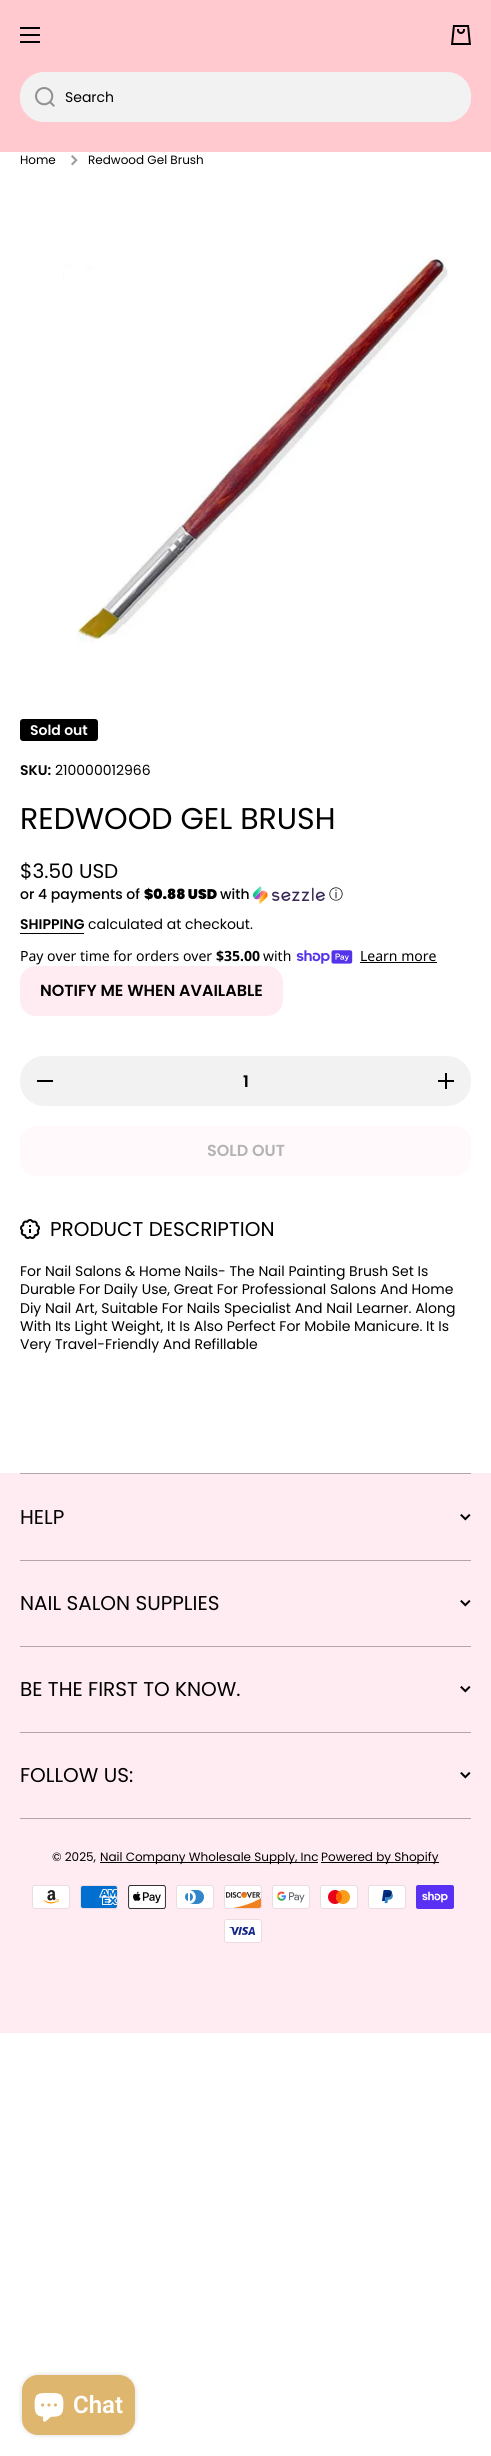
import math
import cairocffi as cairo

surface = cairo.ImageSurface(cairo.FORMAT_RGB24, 491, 2456)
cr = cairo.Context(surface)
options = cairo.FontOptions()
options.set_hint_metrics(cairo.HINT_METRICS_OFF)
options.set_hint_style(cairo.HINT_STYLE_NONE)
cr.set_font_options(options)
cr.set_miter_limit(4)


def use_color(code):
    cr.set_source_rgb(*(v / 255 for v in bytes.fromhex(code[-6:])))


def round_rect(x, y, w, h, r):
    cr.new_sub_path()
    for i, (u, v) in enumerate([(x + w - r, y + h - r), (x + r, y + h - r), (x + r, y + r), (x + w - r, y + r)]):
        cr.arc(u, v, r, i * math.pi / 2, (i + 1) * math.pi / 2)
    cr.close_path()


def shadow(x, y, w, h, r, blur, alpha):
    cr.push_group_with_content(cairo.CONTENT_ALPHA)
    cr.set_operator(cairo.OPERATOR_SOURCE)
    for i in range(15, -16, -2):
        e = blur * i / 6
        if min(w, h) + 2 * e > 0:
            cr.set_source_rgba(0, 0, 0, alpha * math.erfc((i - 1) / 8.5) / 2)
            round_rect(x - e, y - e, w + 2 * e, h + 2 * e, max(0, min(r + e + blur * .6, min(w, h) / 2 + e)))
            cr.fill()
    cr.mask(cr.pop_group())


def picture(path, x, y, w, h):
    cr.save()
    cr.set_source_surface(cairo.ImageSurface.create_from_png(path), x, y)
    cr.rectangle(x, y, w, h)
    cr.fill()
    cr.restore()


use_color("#ffffff")
cr.paint()
use_color("#ffc9cf")
cr.rectangle(0, 0, 491, 152)
cr.fill()
use_color("#000000")
cr.rectangle(20, 27, 20, 2)
cr.fill()
cr.rectangle(20, 34, 20, 2)
cr.fill()
cr.rectangle(20, 41, 20, 2)
cr.fill()
picture("img1.png", 451, 25, 20, 20)
use_color("#f2f2f2")
round_rect(20, 72, 451, 50, 24)
cr.fill()
picture("img2.png", 35, 87, 20, 20)
cr.select_font_face("Poppins")
cr.set_font_size(14)
use_color("#000000")
cr.move_to(65, 102)
cr.show_text("Search")
cr.set_font_size(12)
cr.move_to(20, 164)
cr.show_text("Home")
picture("img3.png", 71, 155, 7, 11)
cr.move_to(88, 164)
cr.show_text("Redwood Gel Brush")
picture("img4.png", 63, 257, 385, 387)
round_rect(20, 719, 78, 22, 3)
cr.fill()
cr.select_font_face("Poppins SemiBold")
cr.set_font_size(14)
use_color("#ffffff")
cr.move_to(30, 735)
cr.show_text("Sold out")
use_color("#000000")
cr.move_to(20, 775)
cr.show_text("SKU:")
cr.select_font_face("Poppins")
cr.move_to(55, 775)
cr.show_text("210000012966")
cr.set_font_size(30)
cr.move_to(20, 829)
cr.show_text("REDWOOD GEL BRUSH")
cr.set_font_size(20)
cr.move_to(20, 878)
cr.show_text("$3.50 USD")
cr.select_font_face("Poppins Medium")
cr.set_font_size(14)
cr.move_to(20, 899)
cr.show_text("or 4 payments of")
cr.select_font_face("Poppins Black")
cr.move_to(144, 899)
cr.show_text("$0.88 USD")
cr.select_font_face("Poppins Medium")
cr.move_to(220, 899)
cr.show_text("with")
picture("img5.png", 253, 886, 72, 18)
cr.select_font_face("WenQuanYi Zen Hei Medium")
cr.move_to(329, 899)
cr.show_text("ⓘ")
cr.select_font_face("Poppins SemiBold")
cr.move_to(20, 929)
cr.show_text("SHIPPING")
cr.rectangle(20, 933, 64, 1)
cr.fill()
cr.select_font_face("Poppins")
cr.move_to(88, 929)
cr.show_text("calculated at checkout.")
cr.select_font_face("Noto Sans")
cr.move_to(20, 961)
cr.show_text("Pay over time for orders over")
cr.select_font_face("Noto Sans", cairo.FONT_SLANT_NORMAL, cairo.FONT_WEIGHT_BOLD)
cr.move_to(216, 961)
cr.show_text("$35.00")
cr.select_font_face("Noto Sans")
cr.move_to(263, 961)
cr.show_text("with")
picture("img6.png", 296, 950, 57, 14)
cr.move_to(360, 961)
cr.show_text("Learn more")
cr.rectangle(360, 962, 77, 1)
cr.fill()
use_color("#ffecf2")
round_rect(20, 966, 263, 50, 16)
cr.fill()
cr.select_font_face("Poppins SemiBold")
cr.set_font_size(16)
use_color("#000000")
cr.move_to(40, 996)
cr.show_text("NOTIFY ME WHEN AVAILABLE")
use_color("#f2f2f2")
round_rect(20, 1056, 451, 50, 24)
cr.fill()
use_color("#000000")
cr.rectangle(37, 1080, 16, 2)
cr.fill()
cr.move_to(243, 1087)
cr.show_text("1")
picture("img7.png", 438, 1073, 16, 16)
use_color("#fff9fb")
round_rect(20, 1126, 451, 50, 16)
cr.fill()
use_color("#b3b3b3")
cr.move_to(207, 1156)
cr.show_text("SOLD OUT")
picture("img8.png", 20, 1219, 20, 20)
cr.select_font_face("Poppins")
cr.set_font_size(20)
use_color("#000000")
cr.move_to(50, 1236)
cr.show_text("PRODUCT DESCRIPTION")
cr.set_font_size(14)
cr.move_to(20, 1276)
cr.show_text("For Nail Salons & Home Nails- The Nail Painting Brush Set Is")
cr.move_to(20, 1294)
cr.show_text("Durable For Daily Use, Great For Professional Salons And Home")
cr.move_to(20, 1313)
cr.show_text("Diy Nail Art, Suitable For Nails Specialist And Nail Learner. Along")
cr.move_to(20, 1331)
cr.show_text("With Its Light Weight, It Is Also Perfect For Mobile Manicure. It Is")
cr.move_to(20, 1349)
cr.show_text("Very Travel-Friendly And Refillable")
use_color("#ffecf2")
cr.rectangle(0, 1473, 491, 560)
cr.fill()
use_color("#b3a5a9")
cr.rectangle(20, 1473, 451, 1)
cr.fill()
cr.set_font_size(20)
use_color("#000000")
cr.move_to(20, 1524)
cr.show_text("HELP")
picture("img9.png", 460, 1514, 11, 7)
use_color("#b3a5a9")
cr.rectangle(20, 1560, 451, 1)
cr.fill()
use_color("#000000")
cr.move_to(20, 1610)
cr.show_text("NAIL SALON SUPPLIES")
picture("img9.png", 460, 1600, 11, 7)
use_color("#b3a5a9")
cr.rectangle(20, 1646, 451, 1)
cr.fill()
use_color("#000000")
cr.move_to(20, 1696)
cr.show_text("BE THE FIRST TO KNOW.")
picture("img9.png", 460, 1686, 11, 7)
use_color("#b3a5a9")
cr.rectangle(20, 1732, 451, 1)
cr.fill()
use_color("#000000")
cr.move_to(20, 1782)
cr.show_text("FOLLOW US:")
picture("img9.png", 460, 1772, 11, 7)
use_color("#b3a5a9")
cr.rectangle(20, 1818, 451, 1)
cr.fill()
cr.set_font_size(12)
use_color("#000000")
cr.move_to(52, 1861)
cr.show_text("© 2025,")
cr.rectangle(100, 1862, 218, 1)
cr.fill()
cr.move_to(100, 1861)
cr.show_text("Nail Company Wholesale Supply, Inc")
cr.rectangle(321, 1862, 118, 1)
cr.fill()
cr.move_to(321, 1861)
cr.show_text("Powered by Shopify")
picture("img10.png", 32, 1885, 38, 24)
picture("img11.png", 80, 1885, 38, 24)
picture("img12.png", 128, 1885, 38, 24)
picture("img13.png", 176, 1885, 38, 24)
picture("img14.png", 224, 1885, 38, 24)
picture("img15.png", 272, 1885, 38, 24)
picture("img16.png", 320, 1885, 38, 24)
picture("img17.png", 368, 1885, 38, 24)
picture("img18.png", 416, 1885, 38, 24)
picture("img19.png", 224, 1919, 38, 24)
use_color("#000000")
shadow(22, 2375, 113, 60, 16, 2.5, 0.15)
use_color("#deb66e")
round_rect(22, 2375, 113, 60, 16)
cr.fill()
picture("img20.png", 34, 2393, 30, 29)
cr.select_font_face("Roboto SemiBold")
cr.set_font_size(24)
use_color("#ffffff")
cr.move_to(73, 2413)
cr.show_text("Chat")
surface.write_to_png("result.png")
